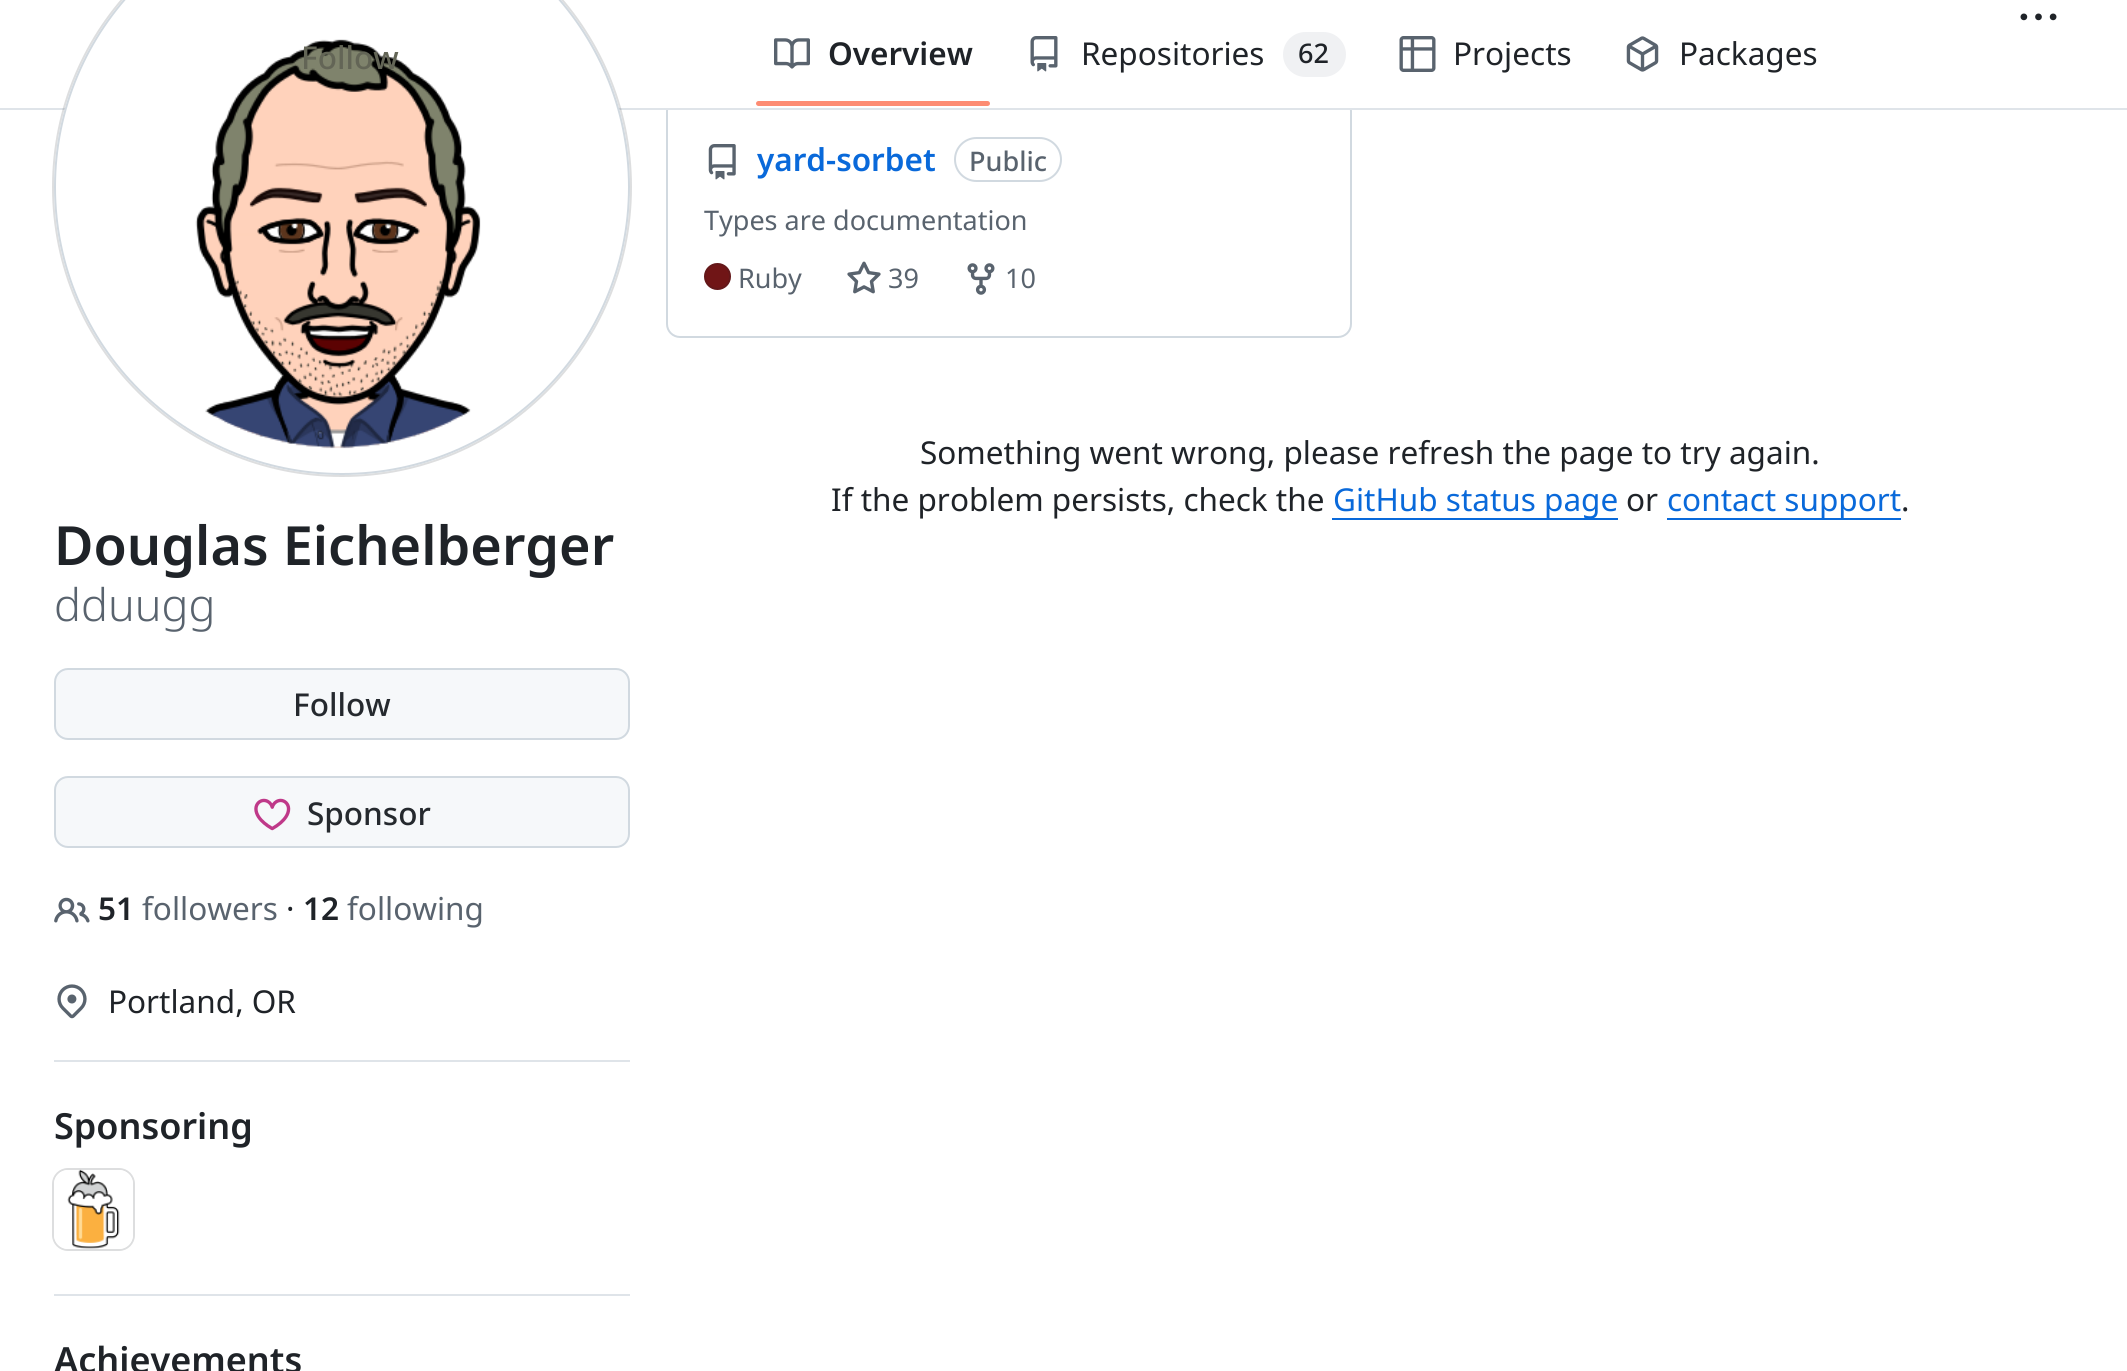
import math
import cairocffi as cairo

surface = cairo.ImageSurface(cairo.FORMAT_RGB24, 2127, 1371)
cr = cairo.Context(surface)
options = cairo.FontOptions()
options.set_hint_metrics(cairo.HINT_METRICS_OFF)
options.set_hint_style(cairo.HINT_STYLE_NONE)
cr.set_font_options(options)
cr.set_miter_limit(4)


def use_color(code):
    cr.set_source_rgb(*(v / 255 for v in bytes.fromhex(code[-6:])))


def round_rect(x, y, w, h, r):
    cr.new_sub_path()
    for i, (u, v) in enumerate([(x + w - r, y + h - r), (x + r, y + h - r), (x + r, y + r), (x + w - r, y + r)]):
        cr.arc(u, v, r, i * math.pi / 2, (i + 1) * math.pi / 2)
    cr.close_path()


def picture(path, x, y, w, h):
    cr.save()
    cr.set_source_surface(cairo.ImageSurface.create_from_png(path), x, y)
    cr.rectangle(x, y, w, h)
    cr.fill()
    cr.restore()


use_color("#ffffff")
cr.paint()
round_rect(667, 98, 684, 239, 13)
use_color("#d1d9e0")
cr.stroke()
use_color("#ffffff")
cr.rectangle(666, 97, 686, 11)
cr.fill()
use_color("#dfe4e9")
cr.rectangle(0, 108, 2127, 2)
cr.fill()
picture("img1.png", 2020, 13, 37, 8)
picture("img2.png", 774, 38, 36, 31)
cr.select_font_face("Noto Sans SemiBold")
cr.set_font_size(31.5)
use_color("#1f2328")
cr.move_to(828, 65)
cr.show_text("Overview")
use_color("#fd8c73")
round_rect(756, 101, 234, 5, 2.5)
cr.fill()
picture("img3.png", 1030, 36, 28, 36)
cr.select_font_face("Noto Sans")
use_color("#1f2328")
cr.move_to(1081, 65)
cr.show_text("Repositories")
use_color("#f0f1f3")
round_rect(1283, 32, 63, 45, 22.5)
cr.fill()
cr.select_font_face("Noto Sans Medium")
cr.set_font_size(27)
use_color("#1f2328")
cr.move_to(1298, 63)
cr.show_text("62")
picture("img4.png", 1399, 36, 37, 36)
cr.select_font_face("Noto Sans")
cr.set_font_size(31.5)
cr.move_to(1453, 65)
cr.show_text("Projects")
picture("img5.png", 1626, 36, 33, 36)
cr.move_to(1679, 65)
cr.show_text("Packages")
cr.new_path()
cr.arc(342, 187, 289, 0, 2 * math.pi)
cr.set_source_rgba(0.122, 0.137, 0.157, 0.15)
cr.stroke()
use_color("#ffffff")
cr.arc(342, 187, 287, 0, 2 * math.pi)
cr.fill_preserve()
use_color("#d1d9e0")
cr.stroke()
picture("img6.png", 195, 39, 286, 410)
cr.select_font_face("Noto Sans Medium")
use_color("#636556")
cr.move_to(301, 69)
cr.show_text("Follow")
cr.select_font_face("Noto Sans SemiBold")
cr.set_font_size(54)
use_color("#1f2328")
cr.move_to(54, 565)
cr.show_text("Douglas Eichelberger")
cr.select_font_face("Noto Sans Light")
cr.set_font_size(45)
use_color("#59636e")
cr.move_to(54, 621)
cr.show_text("dduugg")
use_color("#f6f8fa")
round_rect(55, 669, 574, 70, 13)
cr.fill_preserve()
use_color("#d1d9e0")
cr.stroke()
cr.select_font_face("Noto Sans Medium")
cr.set_font_size(31.5)
use_color("#25292e")
cr.move_to(293, 716)
cr.show_text("Follow")
use_color("#f6f8fa")
round_rect(55, 777, 574, 70, 13)
cr.fill_preserve()
use_color("#d1d9e0")
cr.stroke()
picture("img7.png", 254, 798, 37, 33)
use_color("#25292e")
cr.move_to(307, 825)
cr.show_text("Sponsor")
picture("img8.png", 54, 897, 36, 26)
cr.select_font_face("Noto Sans SemiBold")
use_color("#1f2328")
cr.move_to(98, 920)
cr.show_text("51")
cr.select_font_face("Noto Sans")
use_color("#59636e")
cr.move_to(142, 920)
cr.show_text("followers")
use_color("#1f2328")
cr.move_to(286, 920)
cr.show_text("·")
cr.select_font_face("Noto Sans SemiBold")
cr.move_to(303, 920)
cr.show_text("12")
cr.select_font_face("Noto Sans")
use_color("#59636e")
cr.move_to(347, 920)
cr.show_text("following")
picture("img9.png", 57, 984, 30, 35)
use_color("#1f2328")
cr.move_to(108, 1013)
cr.show_text("Portland, OR")
use_color("#dfe4e9")
cr.rectangle(54, 1060, 576, 2)
cr.fill()
cr.select_font_face("Noto Sans SemiBold")
cr.set_font_size(36)
use_color("#1f2328")
cr.move_to(54, 1139)
cr.show_text("Sponsoring")
round_rect(53, 1169, 81, 81, 15)
use_color("#dddedf")
cr.stroke()
use_color("#ffffff")
round_rect(54, 1170, 79, 79, 14)
cr.fill()
picture("img10.png", 67, 1169, 53, 80)
use_color("#dfe4e9")
cr.rectangle(54, 1294, 576, 2)
cr.fill()
use_color("#1f2328")
cr.move_to(54, 1373)
cr.show_text("Achievements")
picture("img11.png", 708, 144, 28, 36)
cr.set_font_size(31.5)
use_color("#0969da")
cr.move_to(757, 171)
cr.show_text("yard-sorbet")
round_rect(955, 138, 106, 43, 21.5)
use_color("#d1d9e0")
cr.stroke()
cr.select_font_face("Noto Sans Medium")
cr.set_font_size(27)
use_color("#59636e")
cr.move_to(969, 171)
cr.show_text("Public")
cr.select_font_face("Noto Sans")
cr.move_to(704, 230)
cr.show_text("Types are documentation")
use_color("#701516")
cr.new_path()
cr.arc(717.5, 276.5, 13.5, 0, 2 * math.pi)
cr.fill()
cr.arc(717.5, 276.5, 12.5, 0, 2 * math.pi)
cr.set_source_rgba(0.122, 0.137, 0.157, 0.15)
cr.stroke()
use_color("#59636e")
cr.move_to(738, 288)
cr.show_text("Ruby")
picture("img12.png", 847, 261, 34, 33)
cr.move_to(888, 288)
cr.show_text("39")
picture("img13.png", 967, 263, 28, 32)
cr.move_to(1005, 288)
cr.show_text("10")
cr.set_font_size(31.5)
use_color("#1f2328")
cr.move_to(920, 464)
cr.show_text("Something went wrong, please refresh the page to try again.")
cr.move_to(831, 511)
cr.show_text("If the problem persists, check the")
use_color("#0969da")
cr.rectangle(1332, 518, 286, 2)
cr.fill()
cr.move_to(1333, 511)
cr.show_text("GitHub status page")
use_color("#1f2328")
cr.move_to(1626, 511)
cr.show_text("or")
use_color("#0969da")
cr.rectangle(1667, 518, 234, 2)
cr.fill()
cr.move_to(1667, 511)
cr.show_text("contact support")
use_color("#1f2328")
cr.move_to(1901, 511)
cr.show_text(".")
surface.write_to_png("result.png")
